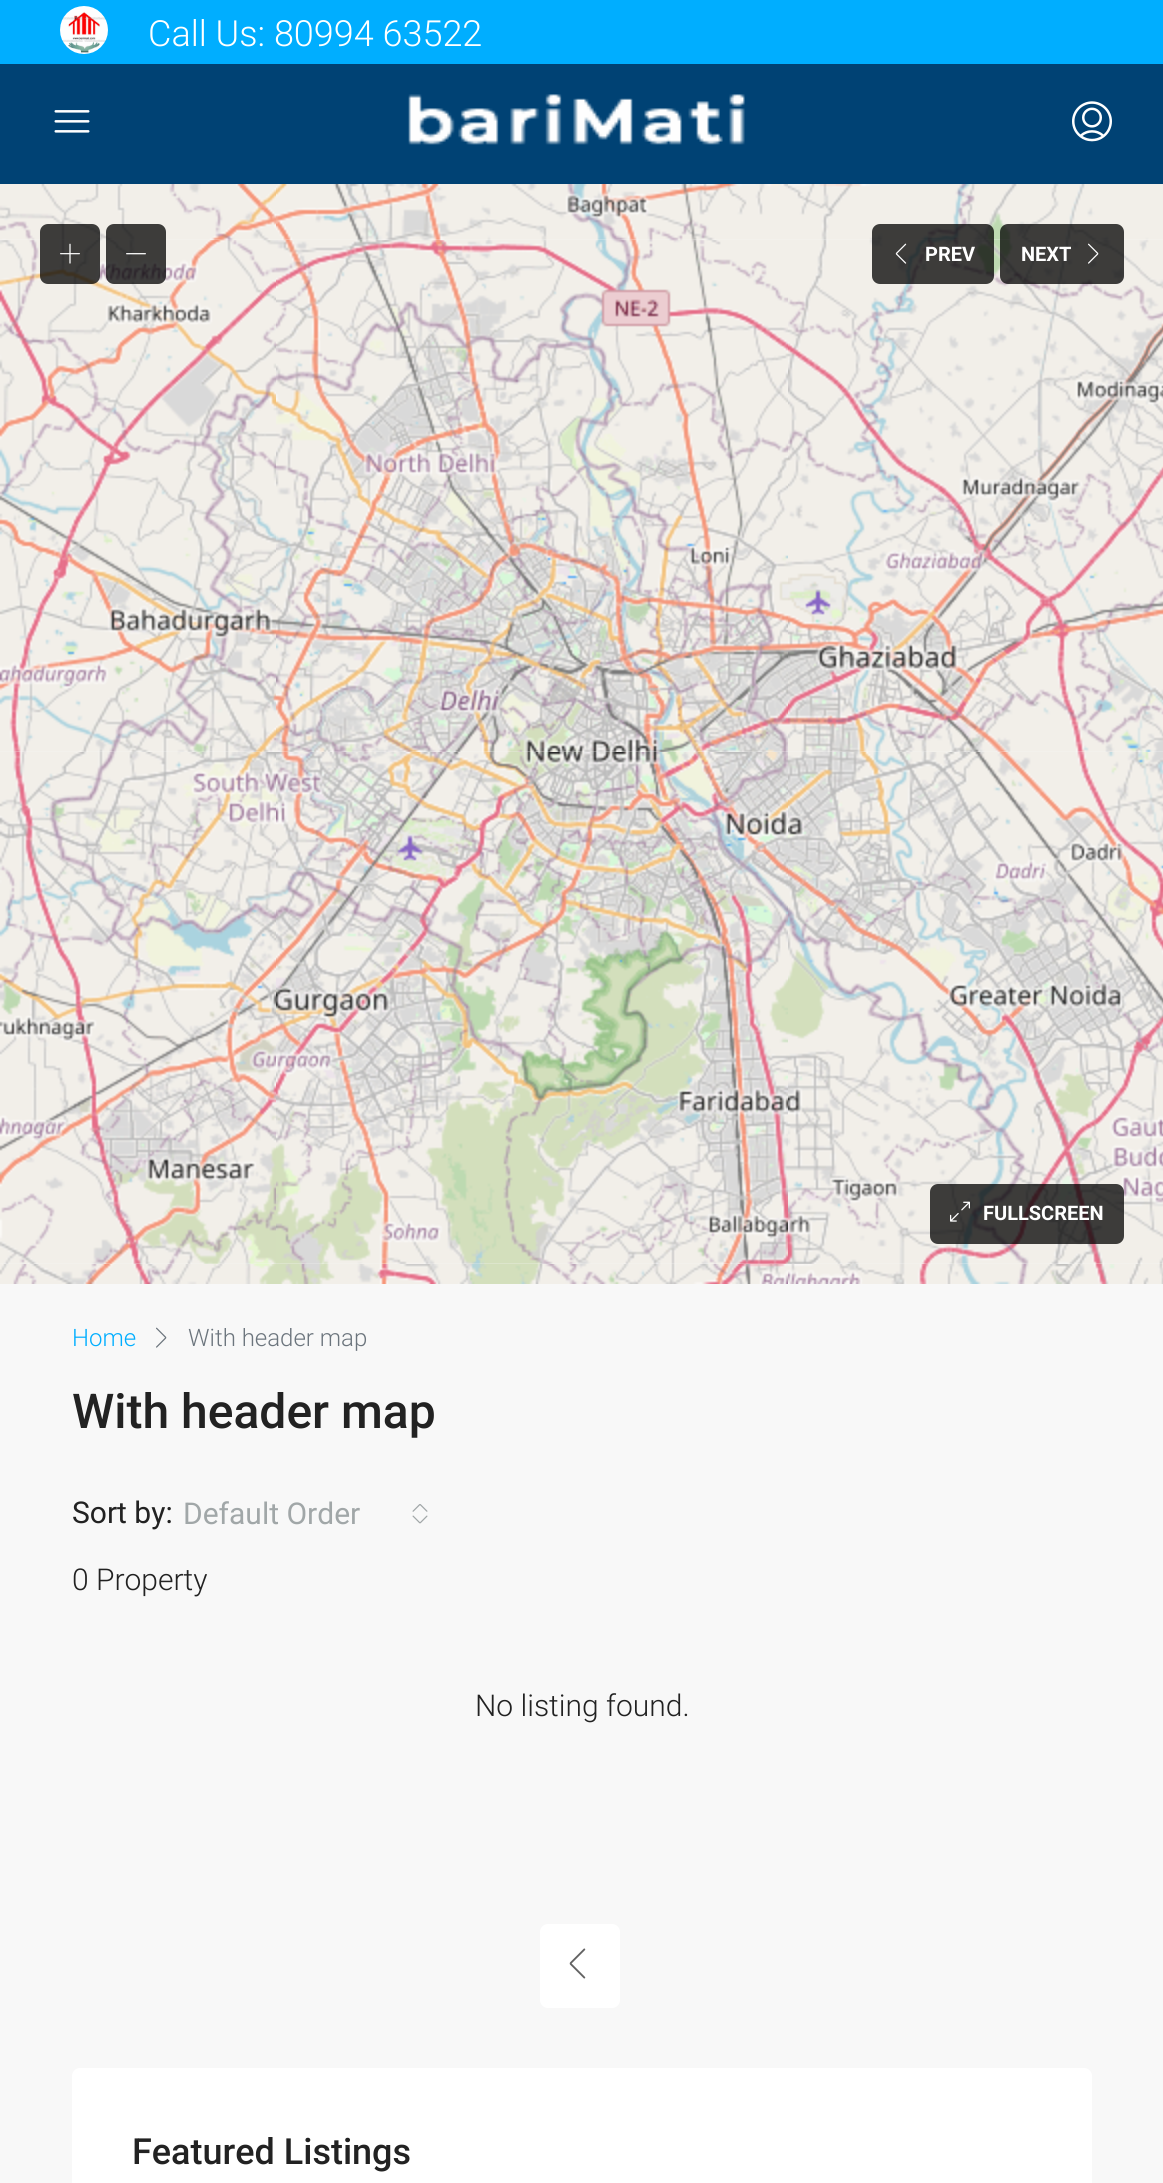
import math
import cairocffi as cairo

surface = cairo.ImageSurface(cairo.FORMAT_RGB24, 1163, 2183)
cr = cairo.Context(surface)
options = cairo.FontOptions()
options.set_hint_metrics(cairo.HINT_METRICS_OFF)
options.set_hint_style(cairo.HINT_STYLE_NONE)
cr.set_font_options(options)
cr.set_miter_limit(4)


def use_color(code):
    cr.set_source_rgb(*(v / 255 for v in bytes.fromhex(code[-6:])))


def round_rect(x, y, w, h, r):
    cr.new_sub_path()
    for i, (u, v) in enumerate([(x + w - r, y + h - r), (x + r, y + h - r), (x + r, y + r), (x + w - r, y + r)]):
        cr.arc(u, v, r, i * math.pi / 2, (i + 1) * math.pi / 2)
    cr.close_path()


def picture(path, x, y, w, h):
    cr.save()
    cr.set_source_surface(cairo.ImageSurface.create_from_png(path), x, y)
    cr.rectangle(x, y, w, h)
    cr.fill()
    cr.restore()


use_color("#f8f8f8")
cr.paint()
use_color("#00aeff")
cr.rectangle(0, 0, 1163, 64)
cr.fill()
picture("img1.png", 60, 6, 48, 48)
cr.select_font_face("Roboto Light")
cr.set_font_size(36)
use_color("#ffffff")
cr.move_to(148, 46)
cr.show_text("Call Us: 80994 63522")
use_color("#004274")
cr.rectangle(0, 64, 1163, 120)
cr.fill()
picture("img2.png", 54, 110, 36, 23)
picture("img3.png", 408, 94, 337, 51)
picture("img4.png", 1072, 101, 40, 41)
picture("img8.png", 0, 240, 276, 512)
picture("img5.png", 0, 184, 276, 57)
picture("img9.png", 276, 240, 512, 512)
picture("img6.png", 276, 184, 512, 57)
picture("img10.png", 788, 240, 375, 512)
picture("img7.png", 788, 184, 375, 57)
picture("img11.png", 0, 752, 276, 512)
picture("img12.png", 276, 752, 512, 512)
picture("img13.png", 788, 752, 375, 512)
picture("img14.png", 0, 1264, 276, 20)
picture("img15.png", 276, 1264, 512, 20)
picture("img16.png", 788, 1264, 375, 20)
cr.set_source_rgba(0, 0, 0, 0.75)
round_rect(40, 224, 60, 60, 8)
cr.fill()
picture("img17.png", 60, 243, 20, 21)
round_rect(106, 224, 60, 60, 8)
cr.fill()
picture("img18.png", 126, 253, 20, 2)
round_rect(872, 224, 122, 60, 8)
cr.fill()
picture("img19.png", 895, 243, 12, 21)
cr.select_font_face("Roboto", cairo.FONT_SLANT_NORMAL, cairo.FONT_WEIGHT_BOLD)
cr.set_font_size(20)
use_color("#ffffff")
cr.move_to(925, 261)
cr.show_text("PREV")
cr.set_source_rgba(0, 0, 0, 0.75)
round_rect(1000, 224, 124, 60, 8)
cr.fill()
use_color("#ffffff")
cr.move_to(1021, 261)
cr.show_text("NEXT")
picture("img20.png", 1088, 243, 11, 21)
cr.set_source_rgba(0, 0, 0, 0.75)
round_rect(930, 1184, 194, 60, 8)
cr.fill()
picture("img21.png", 950, 1201, 20, 21)
use_color("#ffffff")
cr.move_to(983, 1220)
cr.show_text("FULLSCREEN")
cr.select_font_face("Roboto Light")
cr.set_font_size(24)
use_color("#00aeff")
cr.move_to(72, 1346)
cr.show_text("Home")
picture("img22.png", 156, 1327, 11, 21)
use_color("#6c757d")
cr.move_to(188, 1346)
cr.show_text("With header map")
cr.select_font_face("Roboto Medium")
cr.set_font_size(48)
use_color("#222222")
cr.move_to(72, 1428)
cr.show_text("With header map")
cr.select_font_face("Roboto")
cr.set_font_size(30)
cr.move_to(72, 1523)
cr.show_text("Sort by:")
use_color("#a1a7a8")
cr.move_to(183, 1524)
cr.show_text("Default Order")
picture("img23.png", 412, 1504, 16, 20)
cr.select_font_face("Roboto Light")
use_color("#222222")
cr.move_to(72, 1590)
cr.show_text("0 Property")
cr.move_to(475, 1716)
cr.show_text("No listing found.")
use_color("#ffffff")
round_rect(540, 1924, 80, 84, 8)
cr.fill()
picture("img24.png", 569, 1948, 17, 31)
round_rect(72, 2068, 1020, 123, 8)
cr.fill()
cr.select_font_face("Roboto Medium")
cr.set_font_size(36)
use_color("#222222")
cr.move_to(132, 2164)
cr.show_text("Featured Listings")
surface.write_to_png("result.png")
